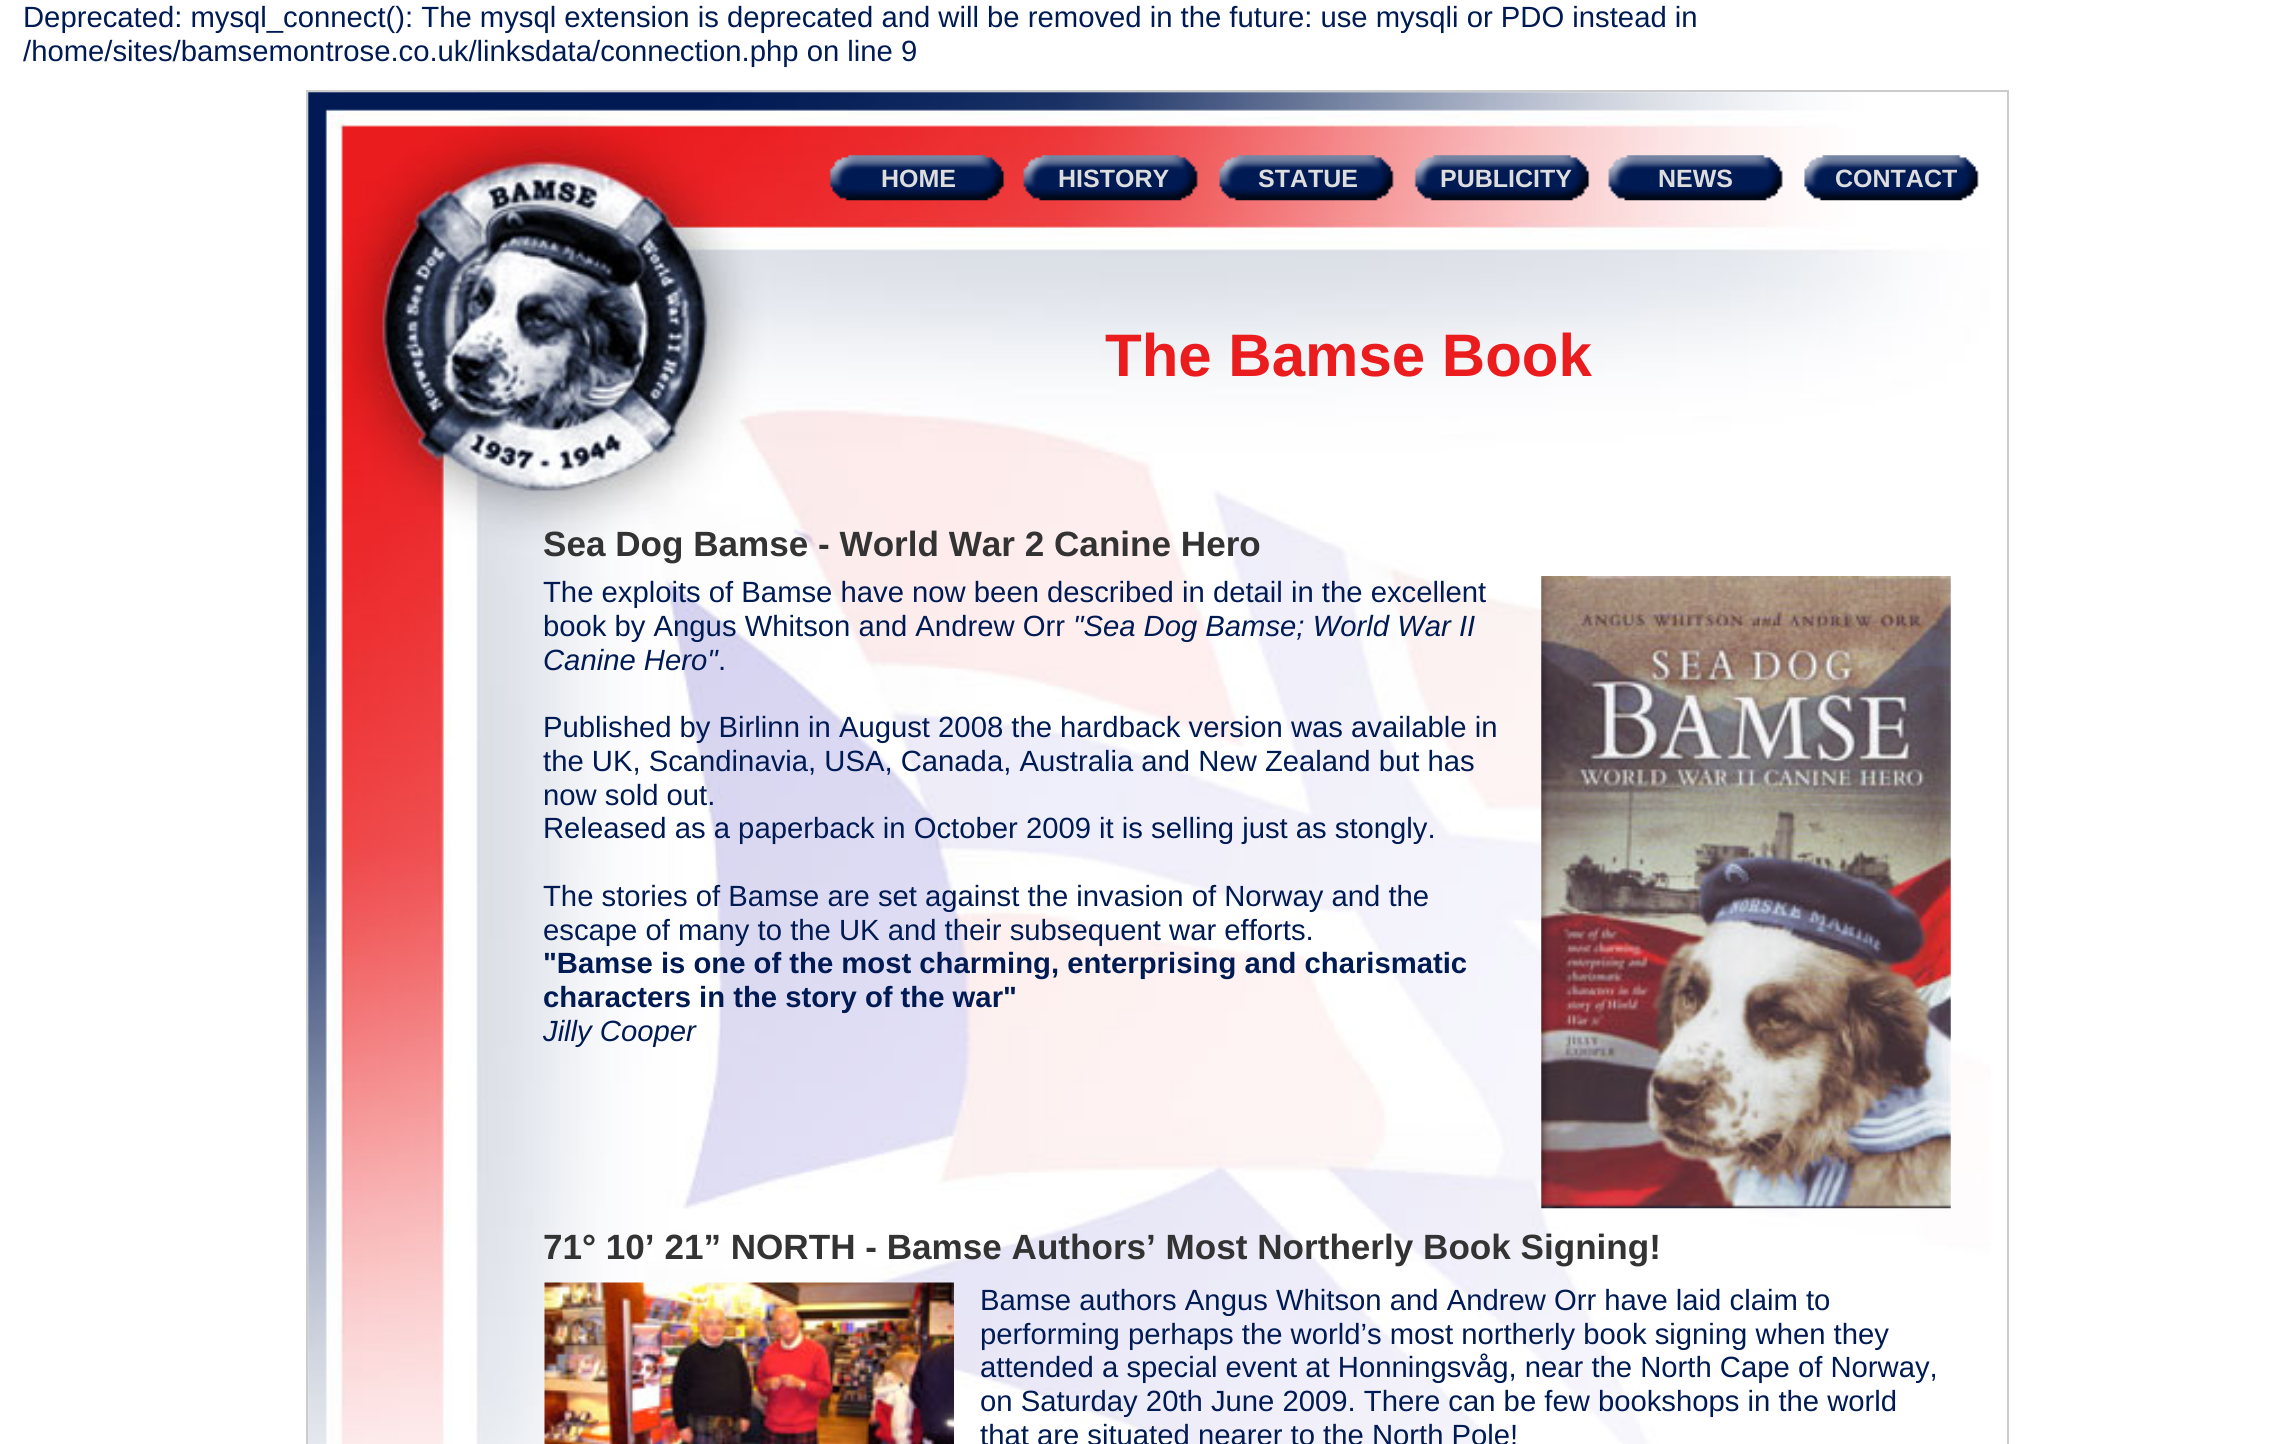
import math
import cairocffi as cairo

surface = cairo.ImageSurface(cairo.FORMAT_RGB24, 2290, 1444)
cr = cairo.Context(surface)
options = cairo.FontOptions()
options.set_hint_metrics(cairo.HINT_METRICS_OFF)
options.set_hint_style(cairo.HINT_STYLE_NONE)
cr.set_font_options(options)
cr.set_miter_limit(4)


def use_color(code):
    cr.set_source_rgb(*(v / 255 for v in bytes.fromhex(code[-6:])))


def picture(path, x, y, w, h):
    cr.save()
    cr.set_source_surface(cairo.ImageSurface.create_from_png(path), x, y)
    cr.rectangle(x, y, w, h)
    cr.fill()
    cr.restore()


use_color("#ffffff")
cr.paint()
cr.select_font_face("Liberation Sans")
cr.set_font_size(29.25)
use_color("#001a54")
cr.move_to(23, 27)
cr.show_text("Deprecated: mysql_connect(): The mysql extension is deprecated and will be removed in the future: use mysqli or PDO instead in")
cr.move_to(23, 61)
cr.show_text("/home/sites/bamsemontrose.co.uk/linksdata/connection.php on line 9")
picture("img1.png", 308, 92, 271, 1352)
cr.rectangle(307, 91, 1701, 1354)
use_color("#cccccc")
cr.stroke()
picture("img2.png", 308, 92, 1682, 1352)
picture("img3.png", 829, 155, 176, 46)
picture("img4.png", 1023, 155, 175, 46)
picture("img5.png", 1219, 155, 175, 46)
picture("img6.png", 1414, 155, 176, 46)
picture("img7.png", 1608, 155, 175, 46)
picture("img8.png", 1804, 155, 175, 46)
cr.select_font_face("Liberation Sans", cairo.FONT_SLANT_NORMAL, cairo.FONT_WEIGHT_BOLD)
cr.set_font_size(25)
use_color("#dddddd")
cr.move_to(881, 187)
cr.show_text("HOME")
cr.move_to(1058, 187)
cr.show_text("HISTORY")
cr.move_to(1258, 187)
cr.show_text("STATUE")
cr.move_to(1440, 187)
cr.show_text("PUBLICITY")
cr.move_to(1658, 187)
cr.show_text("NEWS")
cr.move_to(1835, 187)
cr.show_text("CONTACT")
cr.set_font_size(60)
use_color("#eb1c1e")
cr.move_to(1105, 376)
cr.show_text("The Bamse Book")
cr.set_font_size(35.1)
use_color("#333333")
cr.move_to(543, 556)
cr.show_text("Sea Dog Bamse - World War 2 Canine Hero")
cr.select_font_face("Liberation Sans")
cr.set_font_size(29.25)
use_color("#001a54")
cr.move_to(543, 602)
cr.show_text("The exploits of Bamse have now been described in detail in the excellent")
cr.move_to(543, 636)
cr.show_text("book by Angus Whitson and Andrew Orr")
cr.select_font_face("Liberation Sans", cairo.FONT_SLANT_ITALIC)
cr.move_to(1073, 636)
cr.show_text("\"Sea Dog Bamse; World War II")
cr.move_to(543, 670)
cr.show_text("Canine Hero\"")
cr.select_font_face("Liberation Sans")
cr.move_to(718, 670)
cr.show_text(".")
picture("img9.png", 1541, 576, 410, 633)
cr.move_to(543, 737)
cr.show_text("Published by Birlinn in August 2008 the hardback version was available in")
cr.move_to(543, 771)
cr.show_text("the UK, Scandinavia, USA, Canada, Australia and New Zealand but has")
cr.move_to(543, 805)
cr.show_text("now sold out.")
cr.move_to(543, 838)
cr.show_text("Released as a paperback in October 2009 it is selling just as stongly.")
cr.move_to(543, 906)
cr.show_text("The stories of Bamse are set against the invasion of Norway and the")
cr.move_to(543, 940)
cr.show_text("escape of many to the UK and their subsequent war efforts.")
cr.select_font_face("Liberation Sans", cairo.FONT_SLANT_NORMAL, cairo.FONT_WEIGHT_BOLD)
cr.move_to(543, 973)
cr.show_text("\"Bamse is one of the most charming, enterprising and charismatic")
cr.move_to(543, 1007)
cr.show_text("characters in the story of the war\"")
cr.select_font_face("Liberation Sans", cairo.FONT_SLANT_ITALIC)
cr.move_to(543, 1041)
cr.show_text("Jilly Cooper")
cr.select_font_face("Liberation Sans", cairo.FONT_SLANT_NORMAL, cairo.FONT_WEIGHT_BOLD)
cr.set_font_size(35.1)
use_color("#333333")
cr.move_to(543, 1259)
cr.show_text("71° 10’ 21” NORTH - Bamse Authors’ Most Northerly Book Signing!")
picture("img10.png", 544, 1282, 410, 162)
cr.select_font_face("Liberation Sans")
cr.set_font_size(29.25)
use_color("#001a54")
cr.move_to(980, 1310)
cr.show_text("Bamse authors Angus Whitson and Andrew Orr have laid claim to")
cr.move_to(980, 1344)
cr.show_text("performing perhaps the world’s most northerly book signing when they")
cr.move_to(980, 1377)
cr.show_text("attended a special event at Honningsvåg, near the North Cape of Norway,")
cr.move_to(980, 1411)
cr.show_text("on Saturday 20th June 2009. There can be few bookshops in the world")
cr.move_to(980, 1445)
cr.show_text("that are situated nearer to the North Pole!")
surface.write_to_png("result.png")
